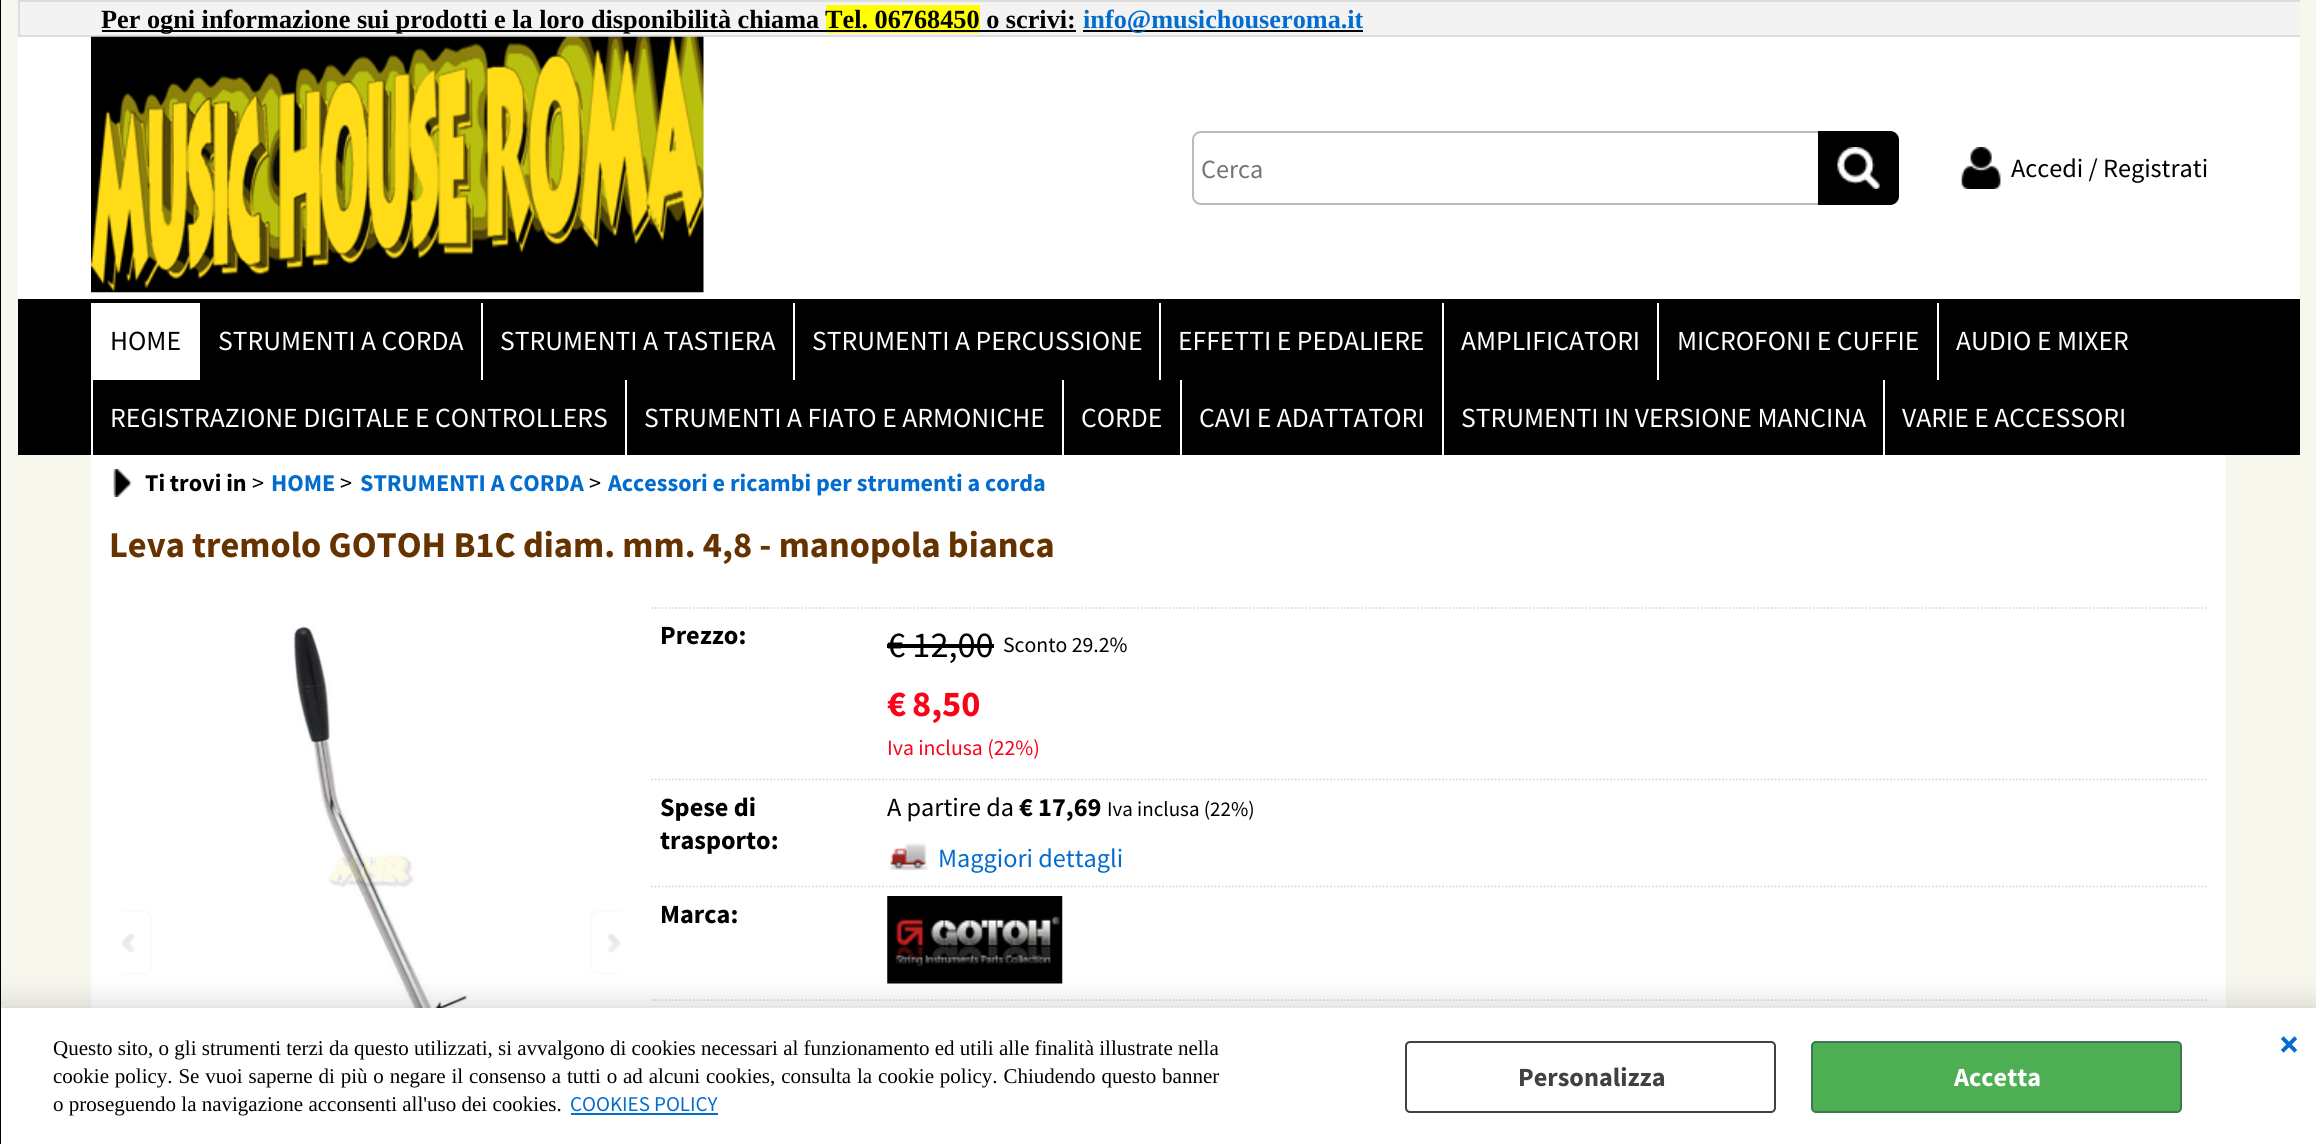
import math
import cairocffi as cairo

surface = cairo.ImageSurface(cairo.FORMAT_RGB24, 2316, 1144)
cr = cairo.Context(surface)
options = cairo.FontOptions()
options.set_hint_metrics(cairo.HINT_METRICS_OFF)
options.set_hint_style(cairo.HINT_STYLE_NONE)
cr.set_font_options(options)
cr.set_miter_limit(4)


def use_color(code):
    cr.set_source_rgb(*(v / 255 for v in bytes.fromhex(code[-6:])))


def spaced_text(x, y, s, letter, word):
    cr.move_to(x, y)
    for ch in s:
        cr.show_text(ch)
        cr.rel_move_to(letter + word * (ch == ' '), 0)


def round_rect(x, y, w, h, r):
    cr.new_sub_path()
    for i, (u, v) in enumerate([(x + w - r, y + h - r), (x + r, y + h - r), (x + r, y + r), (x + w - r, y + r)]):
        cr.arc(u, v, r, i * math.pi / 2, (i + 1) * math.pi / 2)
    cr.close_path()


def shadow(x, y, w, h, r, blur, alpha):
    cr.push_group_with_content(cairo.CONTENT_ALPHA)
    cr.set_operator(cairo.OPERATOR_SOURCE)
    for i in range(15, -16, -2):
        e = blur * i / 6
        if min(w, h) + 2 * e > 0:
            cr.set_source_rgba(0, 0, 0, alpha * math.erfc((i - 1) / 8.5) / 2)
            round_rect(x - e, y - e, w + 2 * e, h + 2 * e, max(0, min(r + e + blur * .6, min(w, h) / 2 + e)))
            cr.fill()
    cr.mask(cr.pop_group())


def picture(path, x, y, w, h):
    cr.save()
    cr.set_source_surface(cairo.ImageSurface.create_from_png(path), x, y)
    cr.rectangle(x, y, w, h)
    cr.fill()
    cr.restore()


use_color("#f7f7ee")
cr.paint()
use_color("#ffffff")
cr.rectangle(91, 455, 2135, 553)
cr.fill()
picture("img5.png", 293, 626, 175, 382)
picture("img7.png", 887, 896, 176, 88)
cr.new_path()
cr.move_to(651, 1000)
cr.line_to(878.5, 1000)
use_color("#dddddd")
cr.set_line_width(1.8)
cr.set_dash([1.75, 1.75])
cr.stroke()
cr.new_path()
cr.move_to(878.5, 1000)
cr.line_to(2208.5, 1000)
cr.stroke()
picture("img8.png", 121, 910, 31, 64)
picture("img9.png", 590, 910, 31, 64)
use_color("#000000")
shadow(0, 1008, 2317, 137, 0, 16, 0.2)
use_color("#000000")
cr.rectangle(0, 0, 1, 1144)
cr.fill()
use_color("#ffffff")
cr.rectangle(18, 37, 2282, 262)
cr.fill()
use_color("#f3f3f3")
cr.rectangle(20, 2, 2280, 33)
cr.fill()
use_color("#dddddd")
cr.rectangle(18, 0, 2282, 2)
cr.fill()
cr.rectangle(18, 35, 2282, 2)
cr.fill()
cr.rectangle(18, 0, 2, 37)
cr.fill()
use_color("#000000")
cr.rectangle(102, 30, 724, 2)
cr.fill()
cr.select_font_face("Liberation Serif", cairo.FONT_SLANT_NORMAL, cairo.FONT_WEIGHT_BOLD)
cr.set_font_size(26.25)
cr.move_to(101, 28)
cr.show_text("Per ogni informazione sui prodotti e la loro disponibilità chiama")
use_color("#ffff00")
cr.rectangle(826, 5, 154, 28)
cr.fill()
use_color("#000000")
cr.move_to(825, 28)
cr.show_text("Tel. 06768450 o scrivi:")
cr.rectangle(826, 30, 250, 2)
cr.fill()
cr.rectangle(1083, 30, 280, 2)
cr.fill()
use_color("#026ccf")
cr.move_to(1083, 28)
cr.show_text("info@musichouseroma.it")
picture("img1.png", 91, 36, 613, 257)
round_rect(1193, 132, 705, 72, 8)
use_color("#bbbbbb")
cr.set_line_width(2)
cr.set_dash([])
cr.stroke()
cr.select_font_face("Source Sans Pro")
use_color("#757575")
cr.move_to(1201, 178)
cr.show_text("Cerca")
use_color("#000000")
cr.new_path()
cr.move_to(1818, 131)
cr.line_to(1890, 131)
cr.curve_to(1895, 131, 1899, 135, 1899, 140)
cr.line_to(1899, 196)
cr.curve_to(1899, 201, 1895, 205, 1890, 205)
cr.line_to(1818, 205)
cr.close_path()
cr.fill()
picture("img2.png", 1837, 147, 43, 42)
picture("img3.png", 1961, 147, 40, 42)
cr.move_to(2011, 177)
cr.show_text("Accedi / Registrati")
cr.rectangle(18, 299, 2282, 156)
cr.fill()
use_color("#ffffff")
cr.rectangle(91, 303, 109, 77)
cr.fill()
cr.set_font_size(27.6)
use_color("#000000")
cr.move_to(110, 350)
cr.show_text("HOME")
use_color("#ffffff")
cr.move_to(218, 350)
cr.show_text("STRUMENTI A CORDA")
cr.rectangle(481, 303, 2, 77)
cr.fill()
cr.move_to(500, 350)
cr.show_text("STRUMENTI A TASTIERA")
cr.rectangle(793, 303, 2, 77)
cr.fill()
cr.move_to(812, 350)
cr.show_text("STRUMENTI A PERCUSSIONE")
cr.rectangle(1159, 303, 2, 77)
cr.fill()
cr.move_to(1178, 350)
cr.show_text("EFFETTI E PEDALIERE")
cr.rectangle(1442, 303, 2, 152)
cr.fill()
cr.move_to(1461, 350)
cr.show_text("AMPLIFICATORI")
cr.rectangle(1657, 303, 2, 77)
cr.fill()
cr.move_to(1677, 350)
cr.show_text("MICROFONI E CUFFIE")
cr.rectangle(1937, 303, 2, 77)
cr.fill()
cr.move_to(1956, 350)
cr.show_text("AUDIO E MIXER")
cr.rectangle(91, 380, 2, 75)
cr.fill()
cr.move_to(110, 427)
cr.show_text("REGISTRAZIONE DIGITALE E CONTROLLERS")
cr.rectangle(625, 380, 2, 75)
cr.fill()
cr.move_to(644, 427)
cr.show_text("STRUMENTI A FIATO E ARMONICHE")
cr.rectangle(1062, 380, 2, 75)
cr.fill()
cr.move_to(1081, 427)
cr.show_text("CORDE")
cr.rectangle(1180, 380, 2, 75)
cr.fill()
cr.move_to(1199, 427)
cr.show_text("CAVI E ADATTATORI")
cr.move_to(1461, 427)
cr.show_text("STRUMENTI IN VERSIONE MANCINA")
cr.rectangle(1883, 380, 2, 75)
cr.fill()
cr.move_to(1902, 427)
cr.show_text("VARIE E ACCESSORI")
picture("img4.png", 113, 469, 19, 28)
cr.select_font_face("Source Sans Pro", cairo.FONT_SLANT_NORMAL, cairo.FONT_WEIGHT_BOLD)
cr.set_font_size(24.1)
use_color("#000000")
cr.move_to(145, 491)
cr.show_text("Ti trovi in")
cr.select_font_face("Source Sans Pro")
cr.move_to(252, 491)
cr.show_text(">")
cr.select_font_face("Source Sans Pro", cairo.FONT_SLANT_NORMAL, cairo.FONT_WEIGHT_BOLD)
use_color("#026ccf")
cr.move_to(271, 491)
cr.show_text("HOME")
cr.select_font_face("Source Sans Pro")
use_color("#000000")
cr.move_to(340, 491)
cr.show_text(">")
cr.select_font_face("Source Sans Pro", cairo.FONT_SLANT_NORMAL, cairo.FONT_WEIGHT_BOLD)
use_color("#026ccf")
cr.move_to(360, 491)
cr.show_text("STRUMENTI A CORDA")
cr.select_font_face("Source Sans Pro")
use_color("#000000")
cr.move_to(589, 491)
cr.show_text(">")
cr.select_font_face("Source Sans Pro", cairo.FONT_SLANT_NORMAL, cairo.FONT_WEIGHT_BOLD)
use_color("#026ccf")
cr.move_to(608, 491)
cr.show_text("Accessori e ricambi per strumenti a corda")
cr.set_font_size(36.35)
use_color("#663300")
cr.move_to(109, 557)
cr.show_text("Leva tremolo GOTOH B1C diam. mm. 4,8 - manopola bianca")
cr.new_path()
cr.move_to(651, 608)
cr.line_to(878.5, 608)
use_color("#dddddd")
cr.set_line_width(1.8)
cr.set_dash([1.75, 1.75])
cr.stroke()
cr.set_font_size(26.25)
use_color("#000000")
cr.move_to(660, 644)
cr.show_text("Prezzo:")
cr.new_path()
cr.move_to(878.5, 608)
cr.line_to(2208.5, 608)
use_color("#dddddd")
cr.stroke()
cr.select_font_face("Source Sans Pro")
cr.set_font_size(36.35)
use_color("#000000")
cr.move_to(887, 657)
cr.show_text("€ 12,00")
cr.rectangle(887, 644, 107, 4)
cr.fill()
cr.set_font_size(21.75)
cr.move_to(1003, 652)
cr.show_text("Sconto 29.2%")
cr.select_font_face("Source Sans Pro", cairo.FONT_SLANT_NORMAL, cairo.FONT_WEIGHT_BOLD)
cr.set_font_size(36.35)
use_color("#fb0219")
cr.move_to(887, 716)
cr.show_text("€")
cr.move_to(912, 716)
cr.show_text("8,50")
cr.select_font_face("Source Sans Pro")
cr.set_font_size(21.75)
cr.move_to(887, 755)
cr.show_text("Iva inclusa (22%)")
cr.new_path()
cr.move_to(651, 779.5)
cr.line_to(878.5, 779.5)
use_color("#dddddd")
cr.stroke()
cr.select_font_face("Source Sans Pro", cairo.FONT_SLANT_NORMAL, cairo.FONT_WEIGHT_BOLD)
cr.set_font_size(26.25)
use_color("#000000")
cr.move_to(660, 816)
cr.show_text("Spese di")
cr.move_to(660, 849)
cr.show_text("trasporto:")
cr.new_path()
cr.move_to(878.5, 779.5)
cr.line_to(2208.5, 779.5)
use_color("#dddddd")
cr.stroke()
cr.select_font_face("Source Sans Pro")
use_color("#000000")
cr.move_to(887, 816)
cr.show_text("A partire da")
cr.select_font_face("Source Sans Pro", cairo.FONT_SLANT_NORMAL, cairo.FONT_WEIGHT_BOLD)
cr.move_to(1019, 816)
cr.show_text("€ 17,69")
cr.select_font_face("Source Sans Pro")
cr.set_font_size(21)
cr.move_to(1107, 816)
cr.show_text("Iva inclusa (22%)")
picture("img6.png", 889, 843, 39, 28)
cr.set_font_size(26.25)
use_color("#026ccf")
cr.move_to(938, 867)
cr.show_text("Maggiori dettagli")
cr.new_path()
cr.move_to(651, 886.5)
cr.line_to(878.5, 886.5)
use_color("#dddddd")
cr.stroke()
cr.select_font_face("Source Sans Pro", cairo.FONT_SLANT_NORMAL, cairo.FONT_WEIGHT_BOLD)
use_color("#000000")
cr.move_to(660, 923)
cr.show_text("Marca:")
cr.new_path()
cr.move_to(878.5, 886.5)
cr.line_to(2208.5, 886.5)
use_color("#dddddd")
cr.stroke()
use_color("#ffffff")
cr.rectangle(1, 1008, 2315, 136)
cr.fill()
cr.select_font_face("Liberation Serif")
cr.set_font_size(21)
use_color("#000000")
cr.move_to(53, 1055)
cr.show_text("Questo sito, o gli strumenti terzi da questo utilizzati, si avvalgono di cookies necessari al funzionamento ed utili alle finalità illustrate nella")
spaced_text(53, 1083, "cookie policy. Se vuoi saperne di più o negare il consenso a tutti o ad alcuni cookies, consulta la cookie policy. Chiudendo questo banner", 0, 0.6)
cr.move_to(53, 1111)
cr.show_text("o proseguendo la navigazione acconsenti all'uso dei cookies.")
cr.select_font_face("Source Sans Pro")
use_color("#026ccf")
cr.move_to(570, 1111)
cr.show_text("COOKIES POLICY")
cr.rectangle(571, 1113, 147, 2)
cr.fill()
round_rect(1406, 1042, 369, 70, 4)
use_color("#424141")
cr.set_line_width(2)
cr.set_dash([])
cr.stroke()
cr.select_font_face("Source Sans Pro", cairo.FONT_SLANT_NORMAL, cairo.FONT_WEIGHT_BOLD)
cr.set_font_size(26.25)
cr.move_to(1518, 1086)
cr.show_text("Personalizza")
use_color("#4eae54")
round_rect(1812, 1042, 369, 70, 4)
cr.fill_preserve()
use_color("#3f7755")
cr.stroke()
use_color("#ffffff")
cr.move_to(1954, 1086)
cr.show_text("Accetta")
cr.set_font_size(38)
use_color("#026ccf")
cr.move_to(2279, 1057)
cr.show_text("×")
surface.write_to_png("result.png")
